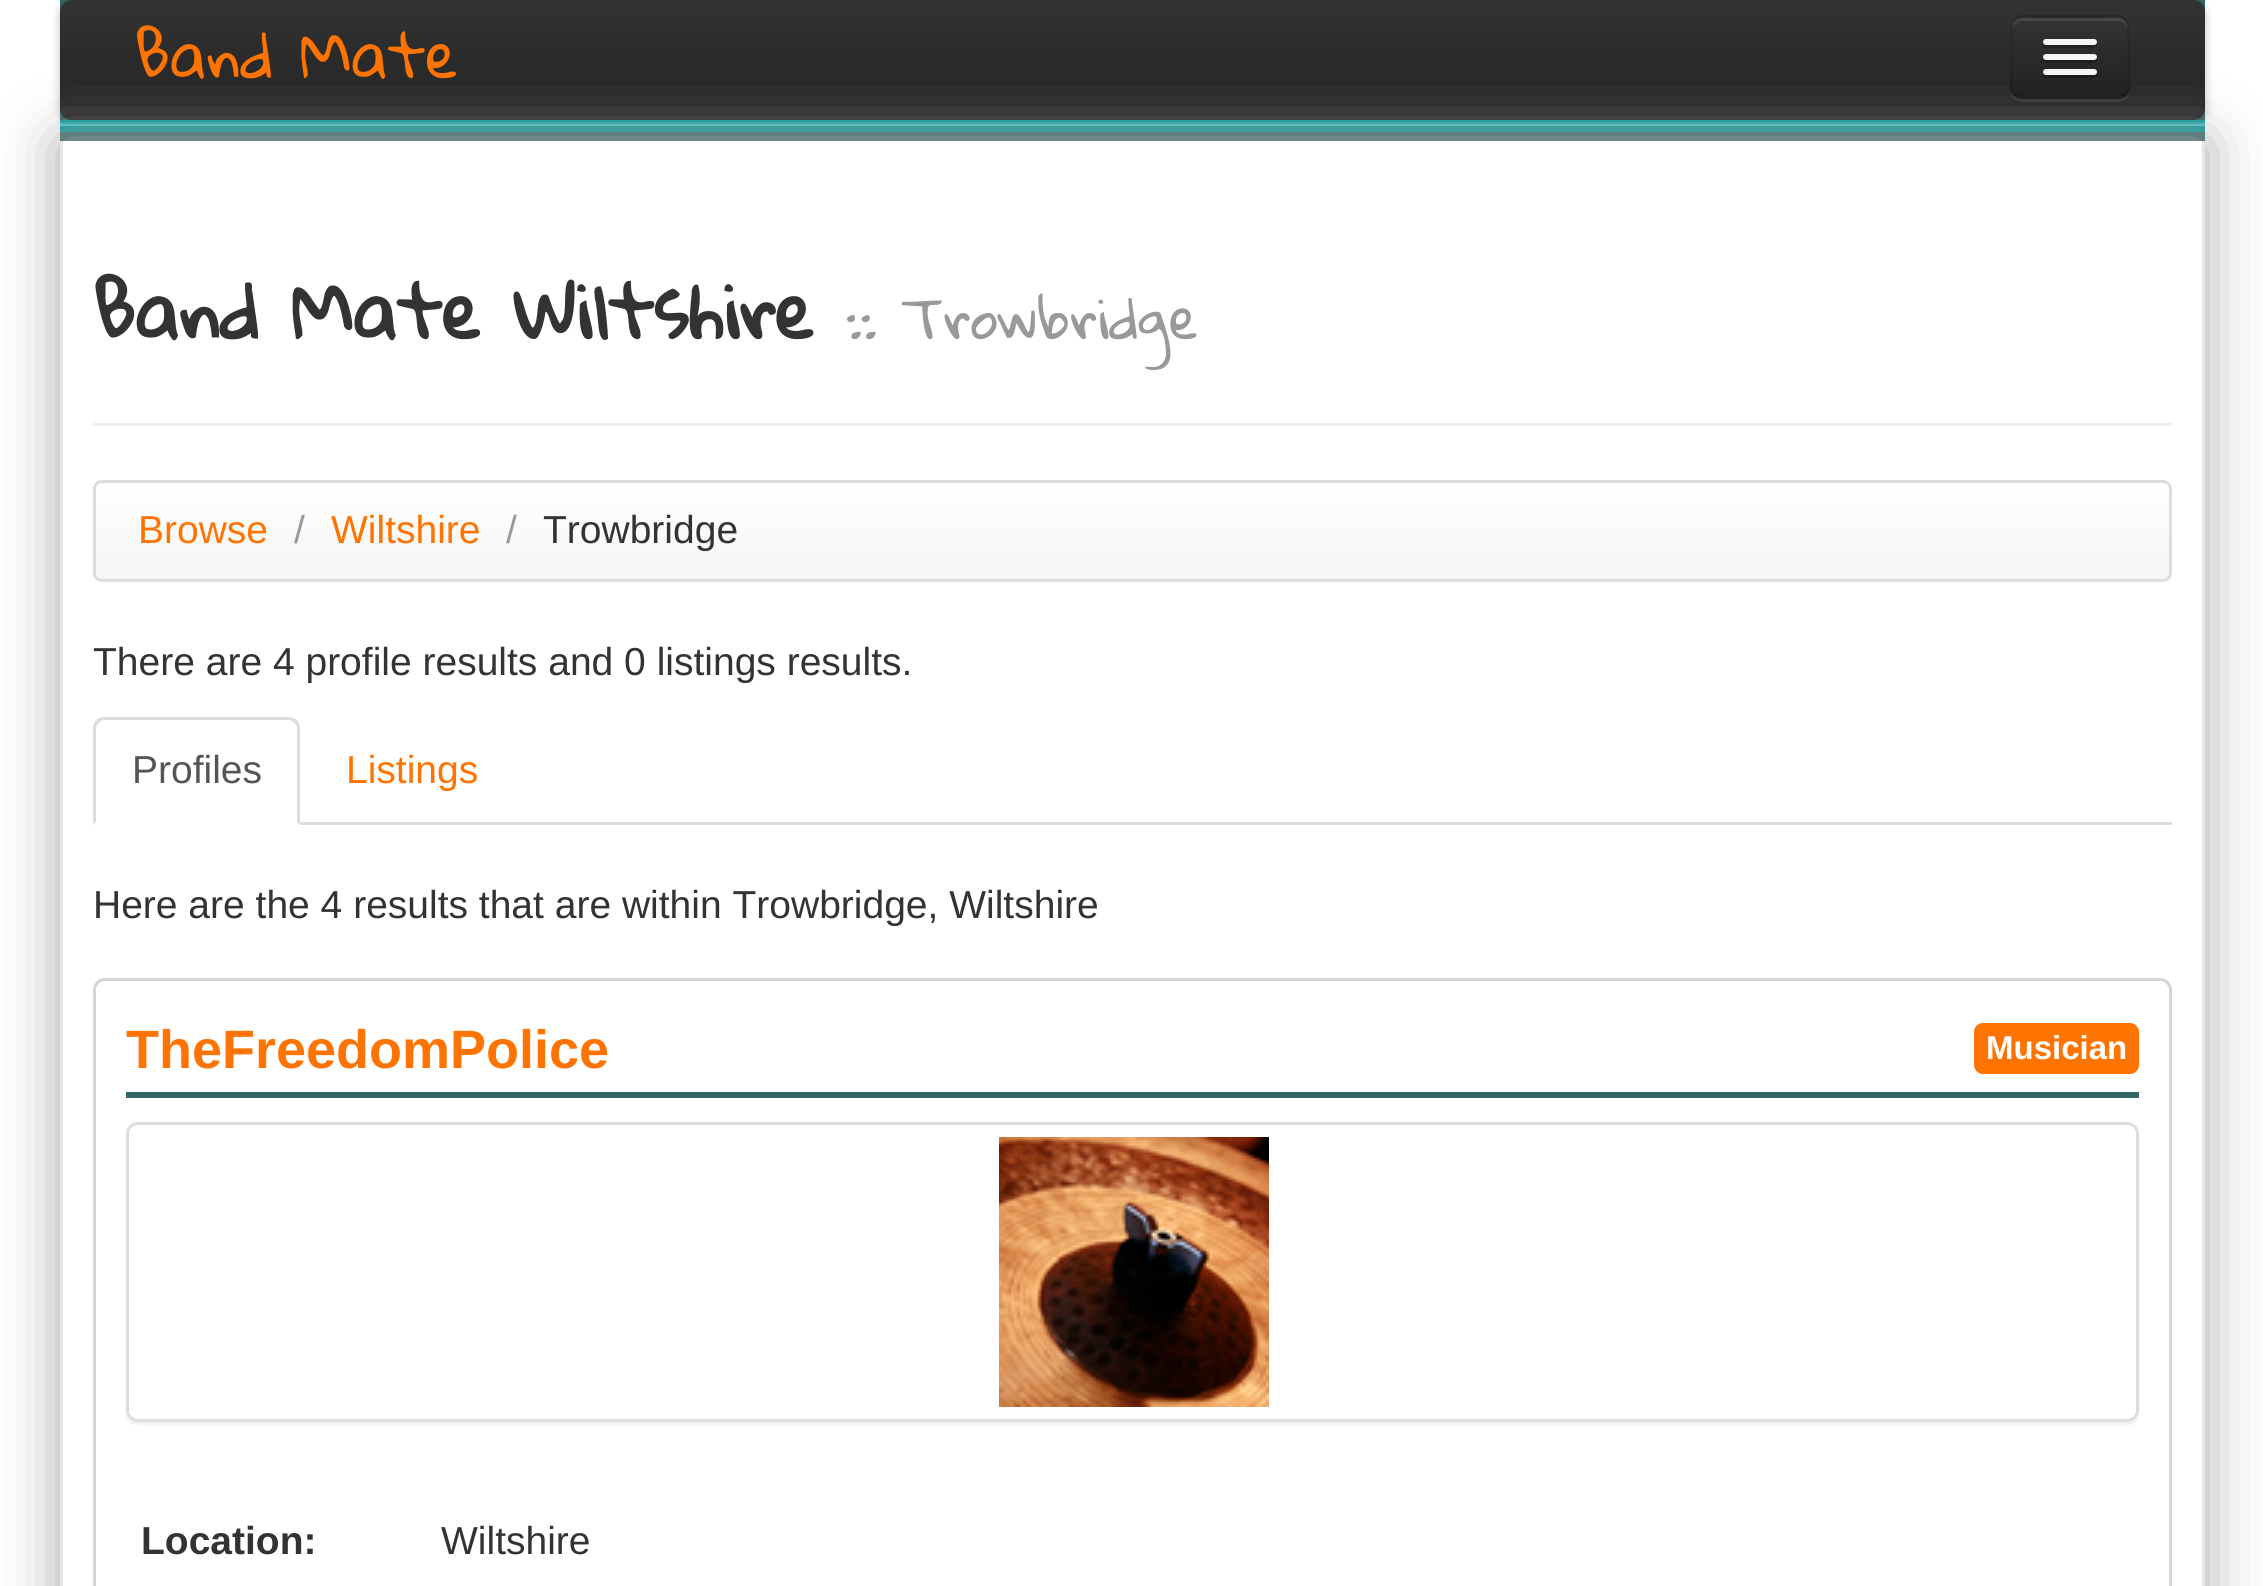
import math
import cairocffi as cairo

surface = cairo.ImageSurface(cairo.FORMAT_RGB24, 2263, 1586)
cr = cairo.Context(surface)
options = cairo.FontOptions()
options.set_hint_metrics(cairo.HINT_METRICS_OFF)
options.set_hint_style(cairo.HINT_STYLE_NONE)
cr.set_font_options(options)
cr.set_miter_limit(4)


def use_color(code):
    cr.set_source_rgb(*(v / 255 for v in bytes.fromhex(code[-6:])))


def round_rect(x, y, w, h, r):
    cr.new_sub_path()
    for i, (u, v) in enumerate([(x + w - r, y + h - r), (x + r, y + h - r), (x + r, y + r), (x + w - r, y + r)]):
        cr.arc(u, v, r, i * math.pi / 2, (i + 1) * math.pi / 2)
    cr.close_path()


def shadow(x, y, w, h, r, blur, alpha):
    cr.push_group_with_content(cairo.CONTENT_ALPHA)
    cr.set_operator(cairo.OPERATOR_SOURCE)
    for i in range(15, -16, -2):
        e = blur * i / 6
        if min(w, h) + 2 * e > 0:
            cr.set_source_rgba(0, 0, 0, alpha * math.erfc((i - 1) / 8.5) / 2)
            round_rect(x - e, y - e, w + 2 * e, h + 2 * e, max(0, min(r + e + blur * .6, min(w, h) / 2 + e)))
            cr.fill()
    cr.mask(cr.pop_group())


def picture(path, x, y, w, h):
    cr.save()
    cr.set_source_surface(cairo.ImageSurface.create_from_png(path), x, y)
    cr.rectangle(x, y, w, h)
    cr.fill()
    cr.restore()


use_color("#ffffff")
cr.paint()
use_color("#336666")
cr.rectangle(60, 0, 2145, 141)
cr.fill()
use_color("#000000")
shadow(60, 3, 2145, 120, 12, 4.5, 0.25)
gradient = cairo.LinearGradient(1133, 0, 1133, 120)
gradient.add_color_stop_rgba(0, 0.2, 0.2, 0.2, 1)
gradient.add_color_stop_rgba(1, 0.133, 0.133, 0.133, 1)
cr.set_source(gradient)
round_rect(60, 0, 2145, 120, 12)
cr.fill()
cr.set_source_rgba(0, 0, 0, 0.1)
cr.new_path()
cr.move_to(60, 105)
cr.line_to(60, 108)
cr.curve_to(60, 115, 65, 120, 72, 120)
cr.line_to(2193, 120)
cr.curve_to(2200, 120, 2205, 115, 2205, 108)
cr.line_to(2205, 105)
cr.curve_to(2205, 112, 2200, 117, 2193, 117)
cr.line_to(72, 117)
cr.curve_to(65, 117, 60, 112, 60, 105)
cr.close_path()
cr.fill()
gradient = cairo.LinearGradient(60, 126, 60, 120)
gradient.add_color_stop_rgba(0, 0.4, 0.8, 0.8, 1)
gradient.add_color_stop_rgba(0.73, 0, 0.6, 0.6, 1)
cr.set_source(gradient)
cr.rectangle(60, 120, 2145, 6)
cr.fill()
use_color("#009999")
cr.rectangle(60, 126, 2145, 6)
cr.fill()
cr.save()
cr.set_fill_rule(cairo.FILL_RULE_EVEN_ODD)
cr.new_path()
cr.move_to(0, 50)
cr.line_to(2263, 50)
cr.line_to(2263, 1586)
cr.line_to(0, 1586)
cr.close_path()
cr.move_to(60, 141)
cr.line_to(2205, 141)
cr.line_to(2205, 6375)
cr.line_to(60, 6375)
cr.close_path()
cr.clip()
use_color("#a9a9a9")
shadow(60, 141, 2145, 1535, 0, 30, 1)
cr.restore()
cr.select_font_face("Gloria Hallelujah")
cr.set_font_size(60)
use_color("#ff7400")
cr.move_to(135, 78)
cr.show_text("Band Mate")
cr.set_source_rgba(1, 1, 1, 0.07)
cr.new_path()
cr.move_to(2010, 87)
cr.curve_to(2010, 105, 2024, 102, 2038, 102)
cr.line_to(2102, 102)
cr.curve_to(2116, 102, 2130, 105, 2130, 87)
cr.curve_to(2130, 94, 2125, 99, 2118, 99)
cr.line_to(2022, 99)
cr.curve_to(2015, 99, 2010, 94, 2010, 87)
cr.close_path()
cr.fill()
use_color("#2c2c2c")
round_rect(2010, 15, 120, 84, 12)
cr.fill()
cr.save()
round_rect(2010, 15, 120, 84, 12)
cr.clip()
gradient = cairo.LinearGradient(2070, 18, 2070, 96)
gradient.add_color_stop_rgba(0, 0.2, 0.2, 0.2, 1)
gradient.add_color_stop_rgba(1, 0.133, 0.133, 0.133, 1)
cr.set_source(gradient)
cr.rectangle(2010, 18, 120, 78)
cr.fill()
cr.restore()
use_color("#474747")
cr.new_path()
cr.move_to(2022, 21)
cr.line_to(2118, 21)
cr.curve_to(2123, 21, 2127, 25, 2127, 30)
cr.curve_to(2127, 14, 2115, 18, 2102, 18)
cr.line_to(2038, 18)
cr.curve_to(2025, 18, 2013, 14, 2013, 30)
cr.curve_to(2013, 25, 2017, 21, 2022, 21)
cr.close_path()
cr.fill()
cr.new_path()
cr.move_to(2125.5, 94.5)
cr.curve_to(2123.5, 96.5, 2121, 97.5, 2118, 97.5)
cr.line_to(2022, 97.5)
cr.curve_to(2019, 97.5, 2016.5, 96.5, 2014.5, 94.5)
cr.set_source_rgba(0, 0, 0, 0.25)
cr.set_line_width(3)
cr.stroke()
cr.new_path()
cr.move_to(2014.5, 94.5)
cr.curve_to(2012.5, 92.5, 2011.5, 90, 2011.5, 87)
cr.line_to(2011.5, 27)
cr.curve_to(2011.5, 24, 2012.5, 21.5, 2014.5, 19.5)
cr.curve_to(2016.5, 17.5, 2019, 16.5, 2022, 16.5)
cr.line_to(2118, 16.5)
cr.curve_to(2121, 16.5, 2123.5, 17.5, 2125.5, 19.5)
cr.curve_to(2127.5, 21.5, 2128.5, 24, 2128.5, 27)
cr.line_to(2128.5, 87)
cr.curve_to(2128.5, 90, 2127.5, 92.5, 2125.5, 94.5)
cr.set_source_rgba(0, 0, 0, 0.1)
cr.stroke()
use_color("#222222")
cr.new_path()
cr.move_to(2043, 44)
cr.curve_to(2040, 50, 2054, 48, 2054, 48)
cr.line_to(2086, 48)
cr.curve_to(2086, 48, 2100, 50, 2097, 44)
cr.curve_to(2096, 44, 2095, 45, 2094, 45)
cr.line_to(2046, 45)
cr.curve_to(2045, 45, 2044, 44, 2043, 44)
cr.close_path()
cr.fill()
use_color("#f5f5f5")
round_rect(2043, 39, 54, 6, 3)
cr.fill()
use_color("#1f1f1f")
cr.new_path()
cr.move_to(2043, 58)
cr.curve_to(2040, 65, 2054, 63, 2054, 63)
cr.line_to(2086, 63)
cr.curve_to(2086, 63, 2100, 65, 2097, 58)
cr.curve_to(2096, 59, 2095, 60, 2094, 60)
cr.line_to(2046, 60)
cr.curve_to(2045, 60, 2044, 59, 2043, 58)
cr.close_path()
cr.fill()
use_color("#f5f5f5")
round_rect(2043, 54, 54, 6, 3)
cr.fill()
use_color("#1d1d1d")
cr.new_path()
cr.move_to(2043, 74)
cr.curve_to(2040, 80, 2054, 78, 2054, 78)
cr.line_to(2086, 78)
cr.curve_to(2086, 78, 2100, 80, 2097, 74)
cr.curve_to(2096, 74, 2095, 75, 2094, 75)
cr.line_to(2046, 75)
cr.curve_to(2045, 75, 2044, 74, 2043, 74)
cr.close_path()
cr.fill()
use_color("#f5f5f5")
round_rect(2043, 69, 54, 6, 3)
cr.fill()
use_color("#e5e5e5")
cr.rectangle(2202, 141, 3, 1445)
cr.fill()
cr.rectangle(60, 141, 3, 1445)
cr.fill()
use_color("#eeeeee")
cr.rectangle(93, 423, 2079, 3)
cr.fill()
cr.select_font_face("Gloria Hallelujah", cairo.FONT_SLANT_NORMAL, cairo.FONT_WEIGHT_BOLD)
cr.set_font_size(72)
use_color("#333333")
cr.move_to(93, 339)
cr.show_text("Band Mate Wiltshire")
cr.select_font_face("Gloria Hallelujah")
cr.set_font_size(54)
use_color("#999999")
cr.move_to(847, 339)
cr.show_text(":: Trowbridge")
cr.save()
round_rect(93, 480, 2079, 102, 9)
cr.clip()
gradient = cairo.LinearGradient(1133, 483, 1133, 579)
gradient.add_color_stop_rgba(0, 1, 1, 1, 1)
gradient.add_color_stop_rgba(1, 0.961, 0.961, 0.961, 1)
cr.set_source(gradient)
cr.rectangle(93, 483, 2079, 96)
cr.fill()
cr.restore()
round_rect(94.5, 481.5, 2076, 99, 7.5)
use_color("#dddddd")
cr.stroke()
cr.select_font_face("Liberation Sans")
cr.set_font_size(39)
use_color("#ff7400")
cr.move_to(138, 543)
cr.show_text("Browse")
use_color("#999999")
cr.move_to(294, 543)
cr.show_text("/")
use_color("#ff7400")
cr.move_to(331, 543)
cr.show_text("Wiltshire")
use_color("#999999")
cr.move_to(506, 543)
cr.show_text("/")
use_color("#333333")
cr.move_to(543, 543)
cr.show_text("Trowbridge")
cr.move_to(93, 675)
cr.show_text("There are 4 profile results and 0 listings results.")
use_color("#dddddd")
cr.rectangle(300, 822, 1872, 3)
cr.fill()
cr.new_path()
cr.move_to(105, 717)
cr.curve_to(102, 717, 98, 718, 96, 720)
cr.line_to(99, 723)
cr.curve_to(100, 721, 102, 720, 105, 720)
cr.line_to(288, 720)
cr.curve_to(290, 720, 293, 721, 294, 723)
cr.line_to(297, 720)
cr.curve_to(294, 718, 292, 717, 288, 717)
cr.close_path()
cr.fill()
cr.new_path()
cr.move_to(300, 825)
cr.line_to(300, 729)
cr.curve_to(300, 726, 299, 722, 297, 720)
cr.line_to(294, 723)
cr.curve_to(296, 724, 297, 726, 297, 729)
cr.line_to(297, 822)
cr.close_path()
cr.fill()
cr.new_path()
cr.move_to(93, 825)
cr.line_to(96, 822)
cr.line_to(96, 729)
cr.curve_to(96, 726, 97, 724, 99, 723)
cr.line_to(96, 720)
cr.curve_to(94, 722, 93, 726, 93, 729)
cr.close_path()
cr.fill()
use_color("#555555")
cr.move_to(132, 783)
cr.show_text("Profiles")
use_color("#ff7400")
cr.move_to(346, 783)
cr.show_text("Listings")
use_color("#333333")
cr.move_to(93, 918)
cr.show_text("Here are the 4 results that are within Trowbridge, Wiltshire")
round_rect(94.5, 979.5, 2076, 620, 10.5)
use_color("#d5d5d5")
cr.stroke()
cr.select_font_face("Liberation Sans", cairo.FONT_SLANT_NORMAL, cairo.FONT_WEIGHT_BOLD)
cr.set_font_size(54)
use_color("#ff7400")
cr.move_to(126, 1068)
cr.show_text("TheFreedomPolice")
round_rect(1974, 1023, 165, 51, 9)
cr.fill()
cr.set_font_size(33)
use_color("#ffffff")
cr.move_to(1986, 1059)
cr.show_text("Musician")
use_color("#336666")
cr.rectangle(126, 1092, 2013, 6)
cr.fill()
cr.save()
cr.set_fill_rule(cairo.FILL_RULE_EVEN_ODD)
cr.new_path()
cr.move_to(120, 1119)
cr.line_to(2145, 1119)
cr.line_to(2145, 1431)
cr.line_to(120, 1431)
cr.close_path()
cr.move_to(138, 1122)
cr.line_to(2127, 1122)
cr.curve_to(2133.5, 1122, 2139, 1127.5, 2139, 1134)
cr.line_to(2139, 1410)
cr.curve_to(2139, 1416.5, 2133.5, 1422, 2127, 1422)
cr.line_to(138, 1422)
cr.curve_to(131.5, 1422, 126, 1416.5, 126, 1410)
cr.line_to(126, 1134)
cr.curve_to(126, 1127.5, 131.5, 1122, 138, 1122)
cr.close_path()
cr.clip()
use_color("#000000")
shadow(126, 1125, 2013, 300, 12, 1.5, 0.07)
cr.restore()
round_rect(127.5, 1123.5, 2010, 297, 10.5)
use_color("#dddddd")
cr.stroke()
picture("img1.png", 999, 1137, 270, 270)
cr.set_font_size(39)
use_color("#333333")
cr.move_to(141, 1554)
cr.show_text("Location:")
cr.select_font_face("Liberation Sans")
cr.move_to(441, 1554)
cr.show_text("Wiltshire")
surface.write_to_png("result.png")
